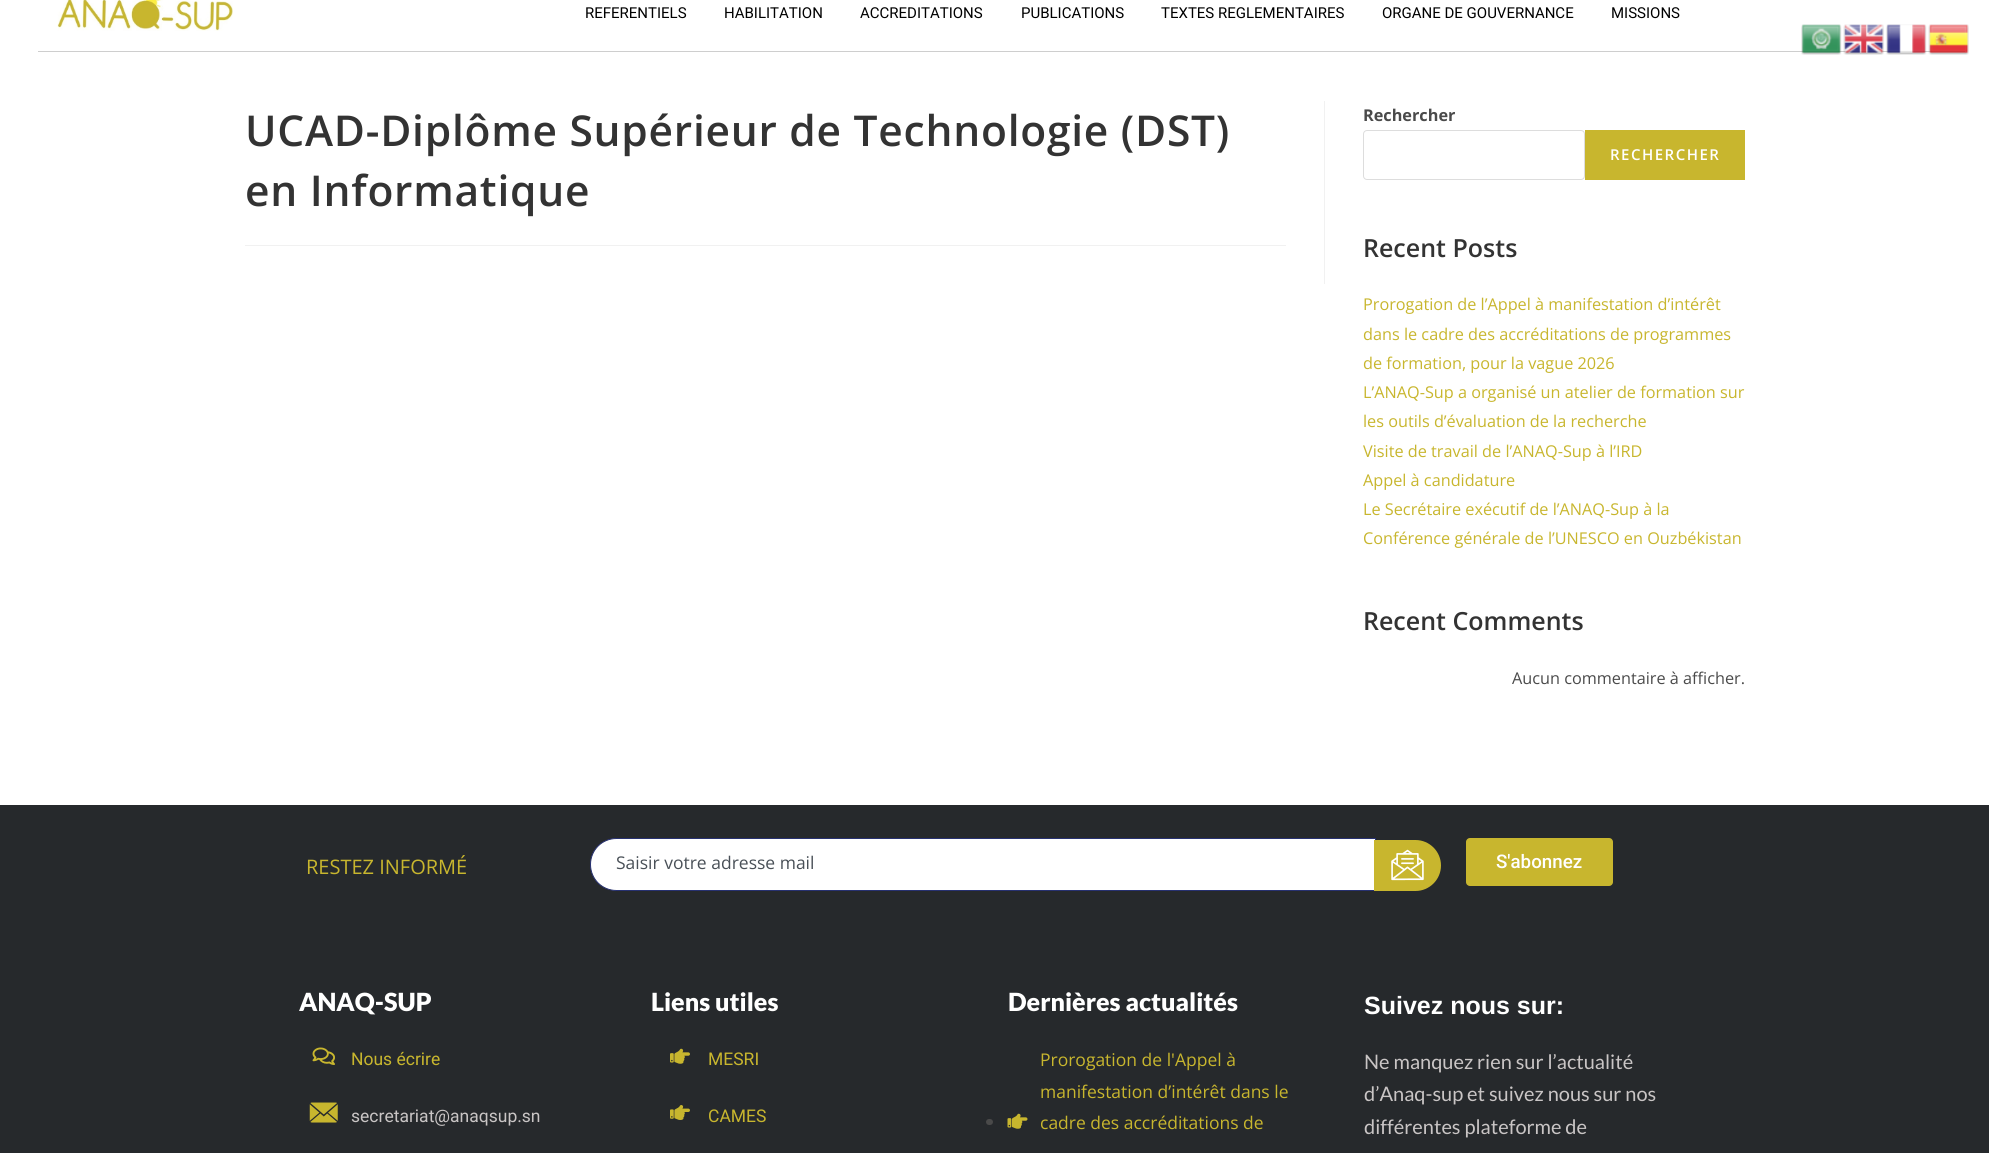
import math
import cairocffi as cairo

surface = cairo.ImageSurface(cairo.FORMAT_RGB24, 1989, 1153)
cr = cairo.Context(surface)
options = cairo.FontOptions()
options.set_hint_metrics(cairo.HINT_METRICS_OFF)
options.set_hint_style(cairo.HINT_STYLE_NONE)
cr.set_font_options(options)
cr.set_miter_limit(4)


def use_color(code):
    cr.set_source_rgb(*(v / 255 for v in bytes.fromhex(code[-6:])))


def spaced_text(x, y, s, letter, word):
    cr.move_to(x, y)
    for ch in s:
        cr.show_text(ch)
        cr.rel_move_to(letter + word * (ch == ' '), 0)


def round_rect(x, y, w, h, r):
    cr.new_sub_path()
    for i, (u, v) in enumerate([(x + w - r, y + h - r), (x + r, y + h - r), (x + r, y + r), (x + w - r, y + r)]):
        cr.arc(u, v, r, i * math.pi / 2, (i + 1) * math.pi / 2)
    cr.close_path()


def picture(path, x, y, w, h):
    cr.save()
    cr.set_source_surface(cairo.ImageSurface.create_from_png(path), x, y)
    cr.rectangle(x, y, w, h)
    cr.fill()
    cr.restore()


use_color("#ffffff")
cr.paint()
picture("img1.png", 57, 0, 176, 31)
cr.select_font_face("Roboto")
cr.set_font_size(15)
use_color("#000000")
cr.move_to(585, 18)
cr.show_text("REFERENTIELS")
cr.move_to(724, 18)
cr.show_text("HABILITATION")
cr.move_to(860, 18)
cr.show_text("ACCREDITATIONS")
cr.move_to(1021, 18)
cr.show_text("PUBLICATIONS")
cr.move_to(1161, 18)
cr.show_text("TEXTES REGLEMENTAIRES")
cr.move_to(1382, 18)
cr.show_text("ORGANE DE GOUVERNANCE")
cr.move_to(1611, 18)
cr.show_text("MISSIONS")
use_color("#cecece")
cr.rectangle(38, 51, 1927, 1)
cr.fill()
use_color("#f1f1f1")
cr.rectangle(1324, 101, 1, 183)
cr.fill()
cr.rectangle(245, 245, 1041, 1)
cr.fill()
cr.select_font_face("Open Sans SemiBold")
cr.set_font_size(42.5)
use_color("#333333")
spaced_text(245, 146, "UCAD-Diplôme Supérieur de Technologie (DST)", 0.75, 0)
spaced_text(245, 206, "en Informatique", 0.75, 0)
cr.select_font_face("Open Sans", cairo.FONT_SLANT_NORMAL, cairo.FONT_WEIGHT_BOLD)
cr.set_font_size(16.25)
use_color("#4a4a4a")
cr.move_to(1363, 121)
cr.show_text("Rechercher")
round_rect(1363.5, 130.5, 221, 49, 3.5)
use_color("#dddddd")
cr.set_line_width(1)
cr.stroke()
use_color("#c8b62e")
cr.rectangle(1585, 130, 160, 50)
cr.fill()
cr.select_font_face("Open Sans SemiBold")
cr.set_font_size(15)
use_color("#ffffff")
spaced_text(1610, 160, "RECHERCHER", 1.5, 0)
cr.set_font_size(25)
use_color("#333333")
cr.move_to(1363, 257)
cr.show_text("Recent Posts")
cr.select_font_face("Open Sans")
cr.set_font_size(16.25)
use_color("#c8b62e")
cr.move_to(1363, 310)
cr.show_text("Prorogation de l’Appel à manifestation d’intérêt")
cr.move_to(1363, 340)
cr.show_text("dans le cadre des accréditations de programmes")
cr.move_to(1363, 369)
cr.show_text("de formation, pour la vague 2026")
cr.move_to(1363, 398)
cr.show_text("L’ANAQ-Sup a organisé un atelier de formation sur")
cr.move_to(1363, 427)
cr.show_text("les outils d’évaluation de la recherche")
cr.move_to(1363, 457)
cr.show_text("Visite de travail de l’ANAQ-Sup à l’IRD")
cr.move_to(1363, 486)
cr.show_text("Appel à candidature")
cr.move_to(1363, 515)
cr.show_text("Le Secrétaire exécutif de l’ANAQ-Sup à la")
cr.move_to(1363, 544)
cr.show_text("Conférence générale de l’UNESCO en Ouzbékistan")
cr.select_font_face("Open Sans SemiBold")
cr.set_font_size(25)
use_color("#333333")
cr.move_to(1363, 630)
cr.show_text("Recent Comments")
cr.select_font_face("Open Sans")
cr.set_font_size(16.25)
use_color("#4a4a4a")
cr.move_to(1512, 684)
cr.show_text("Aucun commentaire à afficher.")
use_color("#26292c")
cr.rectangle(0, 805, 1989, 348)
cr.fill()
cr.set_font_size(20)
use_color("#c8b62e")
cr.move_to(306, 874)
cr.show_text("RESTEZ INFORMÉ")
use_color("#ffffff")
cr.new_path()
cr.move_to(616.5, 838.5)
cr.line_to(1375.5, 838.5)
cr.line_to(1375.5, 890.5)
cr.line_to(616.5, 890.5)
cr.curve_to(602, 890.5, 590.5, 879, 590.5, 864.5)
cr.curve_to(590.5, 850, 602, 838.5, 616.5, 838.5)
cr.close_path()
cr.fill_preserve()
use_color("#273171")
cr.stroke()
cr.set_font_size(17.5)
use_color("#495057")
cr.move_to(616, 869)
cr.show_text("Saisir votre adresse mail")
use_color("#c8b62e")
cr.new_path()
cr.move_to(1374, 840)
cr.line_to(1415.5, 840)
cr.curve_to(1429.5, 840, 1441, 851.5, 1441, 865.5)
cr.curve_to(1441, 879.5, 1429.5, 891, 1415.5, 891)
cr.line_to(1374, 891)
cr.close_path()
cr.fill()
picture("img2.png", 1391, 849, 33, 32)
round_rect(1466, 838, 147, 48, 4)
cr.fill()
cr.select_font_face("Roboto Medium")
cr.set_font_size(18.75)
use_color("#ffffff")
cr.move_to(1496, 868)
cr.show_text("S'abonnez")
cr.select_font_face("Lato Black")
cr.set_font_size(25)
cr.move_to(299, 1011)
cr.show_text("ANAQ-SUP")
picture("img3.png", 312, 1047, 23, 18)
cr.select_font_face("Roboto")
cr.set_font_size(17.5)
use_color("#c8b62e")
cr.move_to(351, 1065)
cr.show_text("Nous écrire")
picture("img4.png", 309, 1102, 29, 21)
use_color("#c9c5c5")
cr.move_to(351, 1122)
cr.show_text("secretariat@anaqsup.sn")
cr.select_font_face("Lato Black")
cr.set_font_size(25)
use_color("#ffffff")
cr.move_to(651, 1011)
cr.show_text("Liens utiles")
picture("img5.png", 670, 1048, 20, 16)
cr.select_font_face("Roboto")
cr.set_font_size(17.5)
use_color("#c8b62e")
cr.move_to(708, 1065)
cr.show_text("MESRI")
picture("img6.png", 670, 1105, 20, 15)
cr.move_to(708, 1122)
cr.show_text("CAMES")
cr.select_font_face("Lato Black")
cr.set_font_size(25)
use_color("#ffffff")
cr.move_to(1008, 1011)
cr.show_text("Dernières actualités")
use_color("#4a4a4a")
round_rect(986, 1119, 7, 6, 3)
cr.fill()
picture("img7.png", 1007, 1113, 21, 16)
cr.select_font_face("Open Sans")
cr.set_font_size(17.5)
use_color("#c8b62e")
cr.move_to(1040, 1066)
cr.show_text("Prorogation de l'Appel à")
cr.move_to(1040, 1098)
cr.show_text("manifestation d’intérêt dans le")
cr.move_to(1040, 1129)
cr.show_text("cadre des accréditations de")
cr.select_font_face("Liberation Sans", cairo.FONT_SLANT_NORMAL, cairo.FONT_WEIGHT_BOLD)
cr.set_font_size(25)
use_color("#ffffff")
cr.move_to(1364, 1014)
cr.show_text("Suivez nous sur:")
cr.select_font_face("Lato")
cr.set_font_size(20)
use_color("#c9c5c5")
cr.move_to(1364, 1069)
cr.show_text("Ne manquez rien sur l’actualité")
cr.move_to(1364, 1101)
cr.show_text("d’Anaq-sup et suivez nous sur nos")
cr.move_to(1364, 1134)
cr.show_text("différentes plateforme de")
picture("img8.png", 1801, 24, 41, 31)
picture("img9.png", 1843, 24, 41, 31)
picture("img10.png", 1886, 24, 41, 31)
picture("img11.png", 1928, 24, 41, 31)
surface.write_to_png("result.png")
